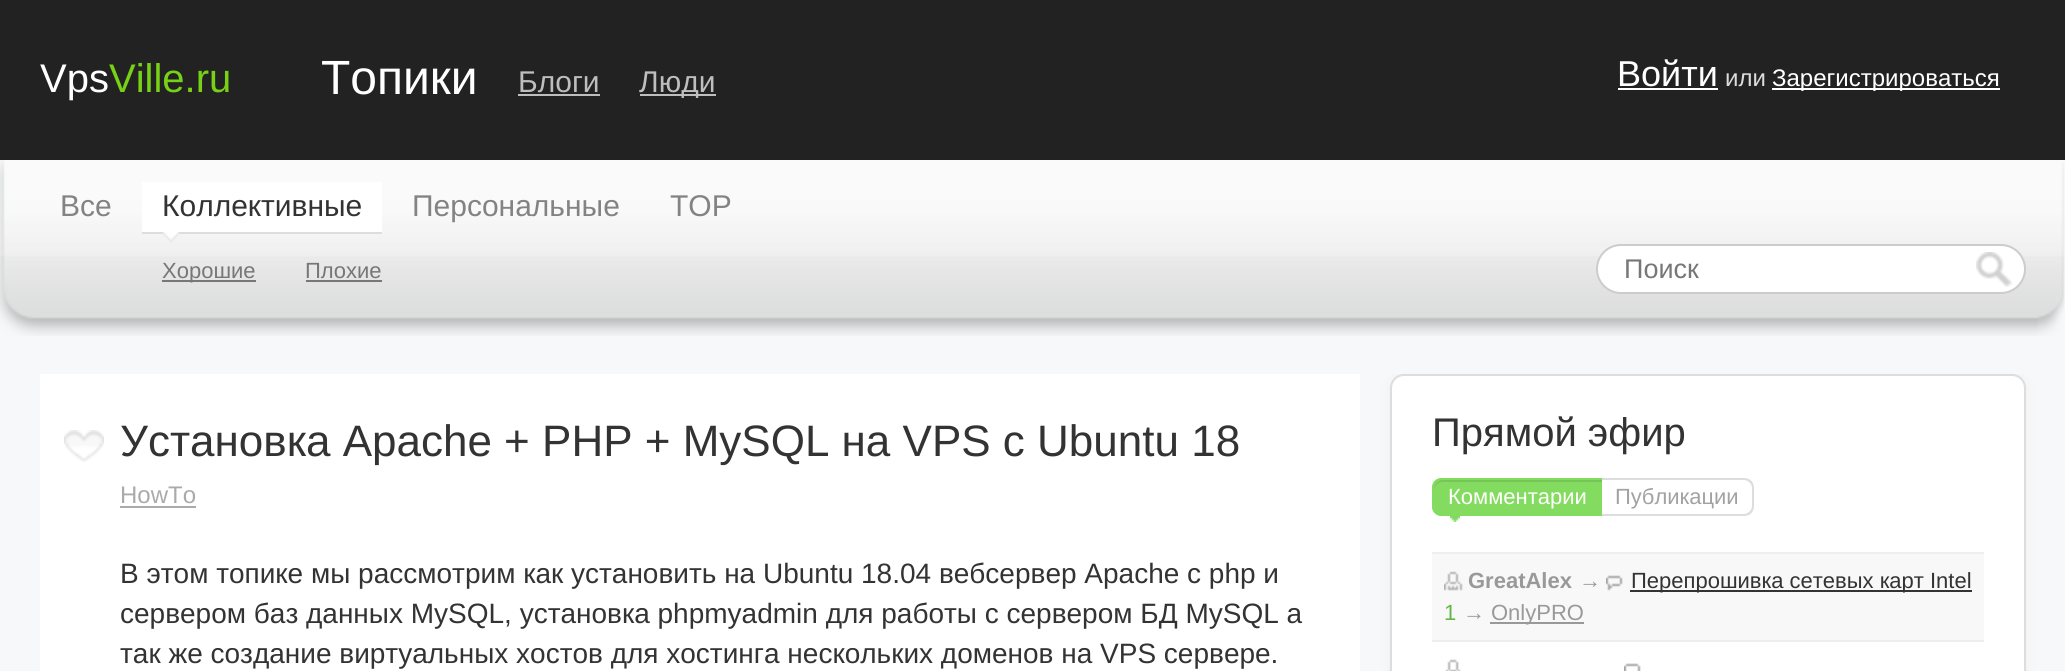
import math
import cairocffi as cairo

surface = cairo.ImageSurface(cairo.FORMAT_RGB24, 2065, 671)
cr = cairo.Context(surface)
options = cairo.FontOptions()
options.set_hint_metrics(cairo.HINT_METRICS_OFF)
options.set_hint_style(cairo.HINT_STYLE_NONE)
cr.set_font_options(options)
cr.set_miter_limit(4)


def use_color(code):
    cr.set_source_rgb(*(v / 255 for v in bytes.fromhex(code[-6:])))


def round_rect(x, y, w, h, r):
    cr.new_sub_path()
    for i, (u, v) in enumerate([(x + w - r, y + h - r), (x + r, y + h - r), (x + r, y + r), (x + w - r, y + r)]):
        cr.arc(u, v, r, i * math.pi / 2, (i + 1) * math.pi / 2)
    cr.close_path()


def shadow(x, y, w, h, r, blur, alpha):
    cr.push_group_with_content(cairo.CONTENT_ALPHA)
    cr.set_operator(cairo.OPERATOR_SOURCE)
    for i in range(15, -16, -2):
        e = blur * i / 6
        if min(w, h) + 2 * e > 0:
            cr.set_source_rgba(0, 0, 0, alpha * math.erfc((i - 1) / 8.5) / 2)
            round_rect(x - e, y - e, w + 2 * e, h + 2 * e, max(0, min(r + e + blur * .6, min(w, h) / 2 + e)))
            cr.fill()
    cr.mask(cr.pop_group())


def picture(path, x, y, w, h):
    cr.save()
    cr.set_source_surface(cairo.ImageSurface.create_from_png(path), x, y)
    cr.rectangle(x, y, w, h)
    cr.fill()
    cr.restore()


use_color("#f7f8f9")
cr.paint()
use_color("#222222")
cr.rectangle(0, 0, 2065, 160)
cr.fill()
cr.select_font_face("Liberation Sans")
cr.set_font_size(40)
use_color("#ffffff")
cr.move_to(40, 92)
cr.show_text("Vps")
use_color("#77d115")
cr.move_to(109, 92)
cr.show_text("Ville.ru")
cr.set_font_size(48)
use_color("#ffffff")
cr.move_to(321, 94)
cr.show_text("Топики")
cr.set_font_size(30)
use_color("#bebebe")
cr.move_to(518, 92)
cr.show_text("Блоги")
cr.rectangle(518, 94, 82, 2)
cr.fill()
cr.rectangle(640, 94, 76, 2)
cr.fill()
cr.move_to(639, 92)
cr.show_text("Люди")
cr.set_font_size(36)
use_color("#ffffff")
cr.move_to(1617, 86)
cr.show_text("Войти")
cr.rectangle(1618, 88, 100, 2)
cr.fill()
cr.set_font_size(24)
use_color("#dddddd")
cr.move_to(1725, 86)
cr.show_text("или")
use_color("#ffffff")
cr.rectangle(1772, 88, 228, 2)
cr.fill()
cr.move_to(1772, 86)
cr.show_text("Зарегистрироваться")
picture("img1.png", 0, 160, 2065, 176)
picture("img2.png", 2037, 162, 28, 174)
cr.set_font_size(30)
use_color("#838383")
cr.move_to(60, 216)
cr.show_text("Все")
use_color("#ffffff")
cr.rectangle(142, 182, 240, 50)
cr.fill()
use_color("#dddddd")
cr.rectangle(142, 232, 240, 2)
cr.fill()
use_color("#333333")
cr.move_to(162, 216)
cr.show_text("Коллективные")
picture("img3.png", 162, 232, 18, 10)
use_color("#777777")
cr.rectangle(162, 280, 94, 2)
cr.fill()
cr.set_font_size(22)
cr.move_to(162, 278)
cr.show_text("Хорошие")
cr.move_to(305, 278)
cr.show_text("Плохие")
cr.rectangle(306, 280, 76, 2)
cr.fill()
cr.set_font_size(30)
use_color("#838383")
cr.move_to(412, 216)
cr.show_text("Персональные")
cr.move_to(670, 216)
cr.show_text("TOP")
use_color("#ffffff")
round_rect(1597, 245, 428, 48, 24)
cr.fill_preserve()
use_color("#cccccc")
cr.stroke()
cr.set_font_size(27)
use_color("#777777")
cr.move_to(1624, 278)
cr.show_text("Поиск")
picture("img4.png", 1976, 252, 36, 35)
use_color("#ffffff")
cr.rectangle(40, 374, 1320, 297)
cr.fill()
picture("img5.png", 64, 430, 40, 32)
cr.set_font_size(44)
use_color("#333333")
cr.move_to(120, 456)
cr.show_text("Установка Apache + PHP + MySQL на VPS с Ubuntu 18")
cr.set_font_size(24)
use_color("#aaaaaa")
cr.move_to(120, 503)
cr.show_text("HowTo")
cr.rectangle(120, 506, 76, 2)
cr.fill()
cr.set_font_size(28)
use_color("#333333")
cr.move_to(120, 583)
cr.show_text("В этом топике мы рассмотрим как установить на Ubuntu 18.04 вебсервер Apache с php и")
cr.move_to(120, 623)
cr.show_text("сервером баз данных MySQL, установка phpmyadmin для работы с сервером БД MySQL а")
cr.move_to(120, 663)
cr.show_text("так же создание виртуальных хостов для хостинга нескольких доменов на VPS сервере.")
cr.save()
cr.rectangle(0, 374, 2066, 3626)
cr.clip()
use_color("#eeeeee")
shadow(1390, 374, 636, 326, 14, 5, 1)
cr.restore()
use_color("#ffffff")
round_rect(1391, 375, 634, 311, 13)
cr.fill_preserve()
use_color("#dddddd")
cr.stroke()
cr.set_font_size(40)
use_color("#333333")
cr.move_to(1432, 446)
cr.show_text("Прямой эфир")
use_color("#83dc5f")
cr.new_path()
cr.move_to(1442, 478)
cr.line_to(1602, 478)
cr.line_to(1602, 516)
cr.line_to(1442, 516)
cr.curve_to(1436.5, 516, 1432, 511.5, 1432, 506)
cr.line_to(1432, 488)
cr.curve_to(1432, 482.5, 1436.5, 478, 1442, 478)
cr.close_path()
cr.fill()
use_color("#75c656")
cr.new_path()
cr.move_to(1442, 482)
cr.line_to(1602, 482)
cr.line_to(1602, 480)
cr.line_to(1442, 480)
cr.curve_to(1438, 480, 1434, 484, 1434, 488)
cr.line_to(1434, 490)
cr.curve_to(1434, 486, 1438, 482, 1442, 482)
cr.close_path()
cr.fill()
use_color("#83dc5f")
cr.set_fill_rule(cairo.FILL_RULE_EVEN_ODD)
cr.new_path()
cr.move_to(1442, 478)
cr.line_to(1602, 478)
cr.line_to(1602, 516)
cr.line_to(1442, 516)
cr.curve_to(1436, 516, 1432, 512, 1432, 506)
cr.line_to(1432, 488)
cr.curve_to(1432, 482, 1436, 478, 1442, 478)
cr.close_path()
cr.move_to(1442, 480)
cr.line_to(1602, 480)
cr.line_to(1602, 514)
cr.line_to(1442, 514)
cr.curve_to(1438, 514, 1434, 510, 1434, 506)
cr.line_to(1434, 488)
cr.curve_to(1434, 484, 1438, 480, 1442, 480)
cr.close_path()
cr.fill()
cr.set_font_size(22)
use_color("#ffffff")
cr.move_to(1448, 504)
cr.show_text("Комментарии")
picture("img6.png", 1450, 516, 10, 6)
use_color("#dddddd")
cr.new_path()
cr.move_to(1602, 478)
cr.line_to(1744, 478)
cr.curve_to(1750, 478, 1754, 482, 1754, 488)
cr.line_to(1754, 506)
cr.curve_to(1754, 512, 1750, 516, 1744, 516)
cr.line_to(1602, 516)
cr.close_path()
cr.move_to(1602, 480)
cr.line_to(1744, 480)
cr.curve_to(1748, 480, 1752, 484, 1752, 488)
cr.line_to(1752, 506)
cr.curve_to(1752, 510, 1748, 514, 1744, 514)
cr.line_to(1602, 514)
cr.close_path()
cr.fill()
use_color("#a2a2a2")
cr.move_to(1615, 504)
cr.show_text("Публикации")
use_color("#eeeeee")
cr.rectangle(1432, 552, 552, 2)
cr.fill()
use_color("#f8f8f8")
cr.rectangle(1432, 554, 552, 86)
cr.fill()
use_color("#eeeeee")
cr.rectangle(1432, 640, 552, 2)
cr.fill()
picture("img7.png", 1444, 571, 19, 20)
cr.select_font_face("Liberation Sans", cairo.FONT_SLANT_NORMAL, cairo.FONT_WEIGHT_BOLD)
use_color("#999999")
cr.move_to(1468, 588)
cr.show_text("GreatAlex")
cr.select_font_face("Liberation Sans")
cr.move_to(1579, 588)
cr.show_text("→")
picture("img8.png", 1606, 575, 17, 16)
use_color("#333333")
cr.rectangle(1630, 590, 342, 2)
cr.fill()
cr.move_to(1631, 588)
cr.show_text("Перепрошивка сетевых карт Intel")
use_color("#66b746")
cr.move_to(1444, 620)
cr.show_text("1")
use_color("#999999")
cr.move_to(1463, 620)
cr.show_text("→")
cr.rectangle(1490, 622, 94, 2)
cr.fill()
cr.move_to(1491, 620)
cr.show_text("OnlyPRO")
picture("img9.png", 1445, 659, 16, 12)
picture("img10.png", 1624, 663, 17, 8)
surface.write_to_png("result.png")
